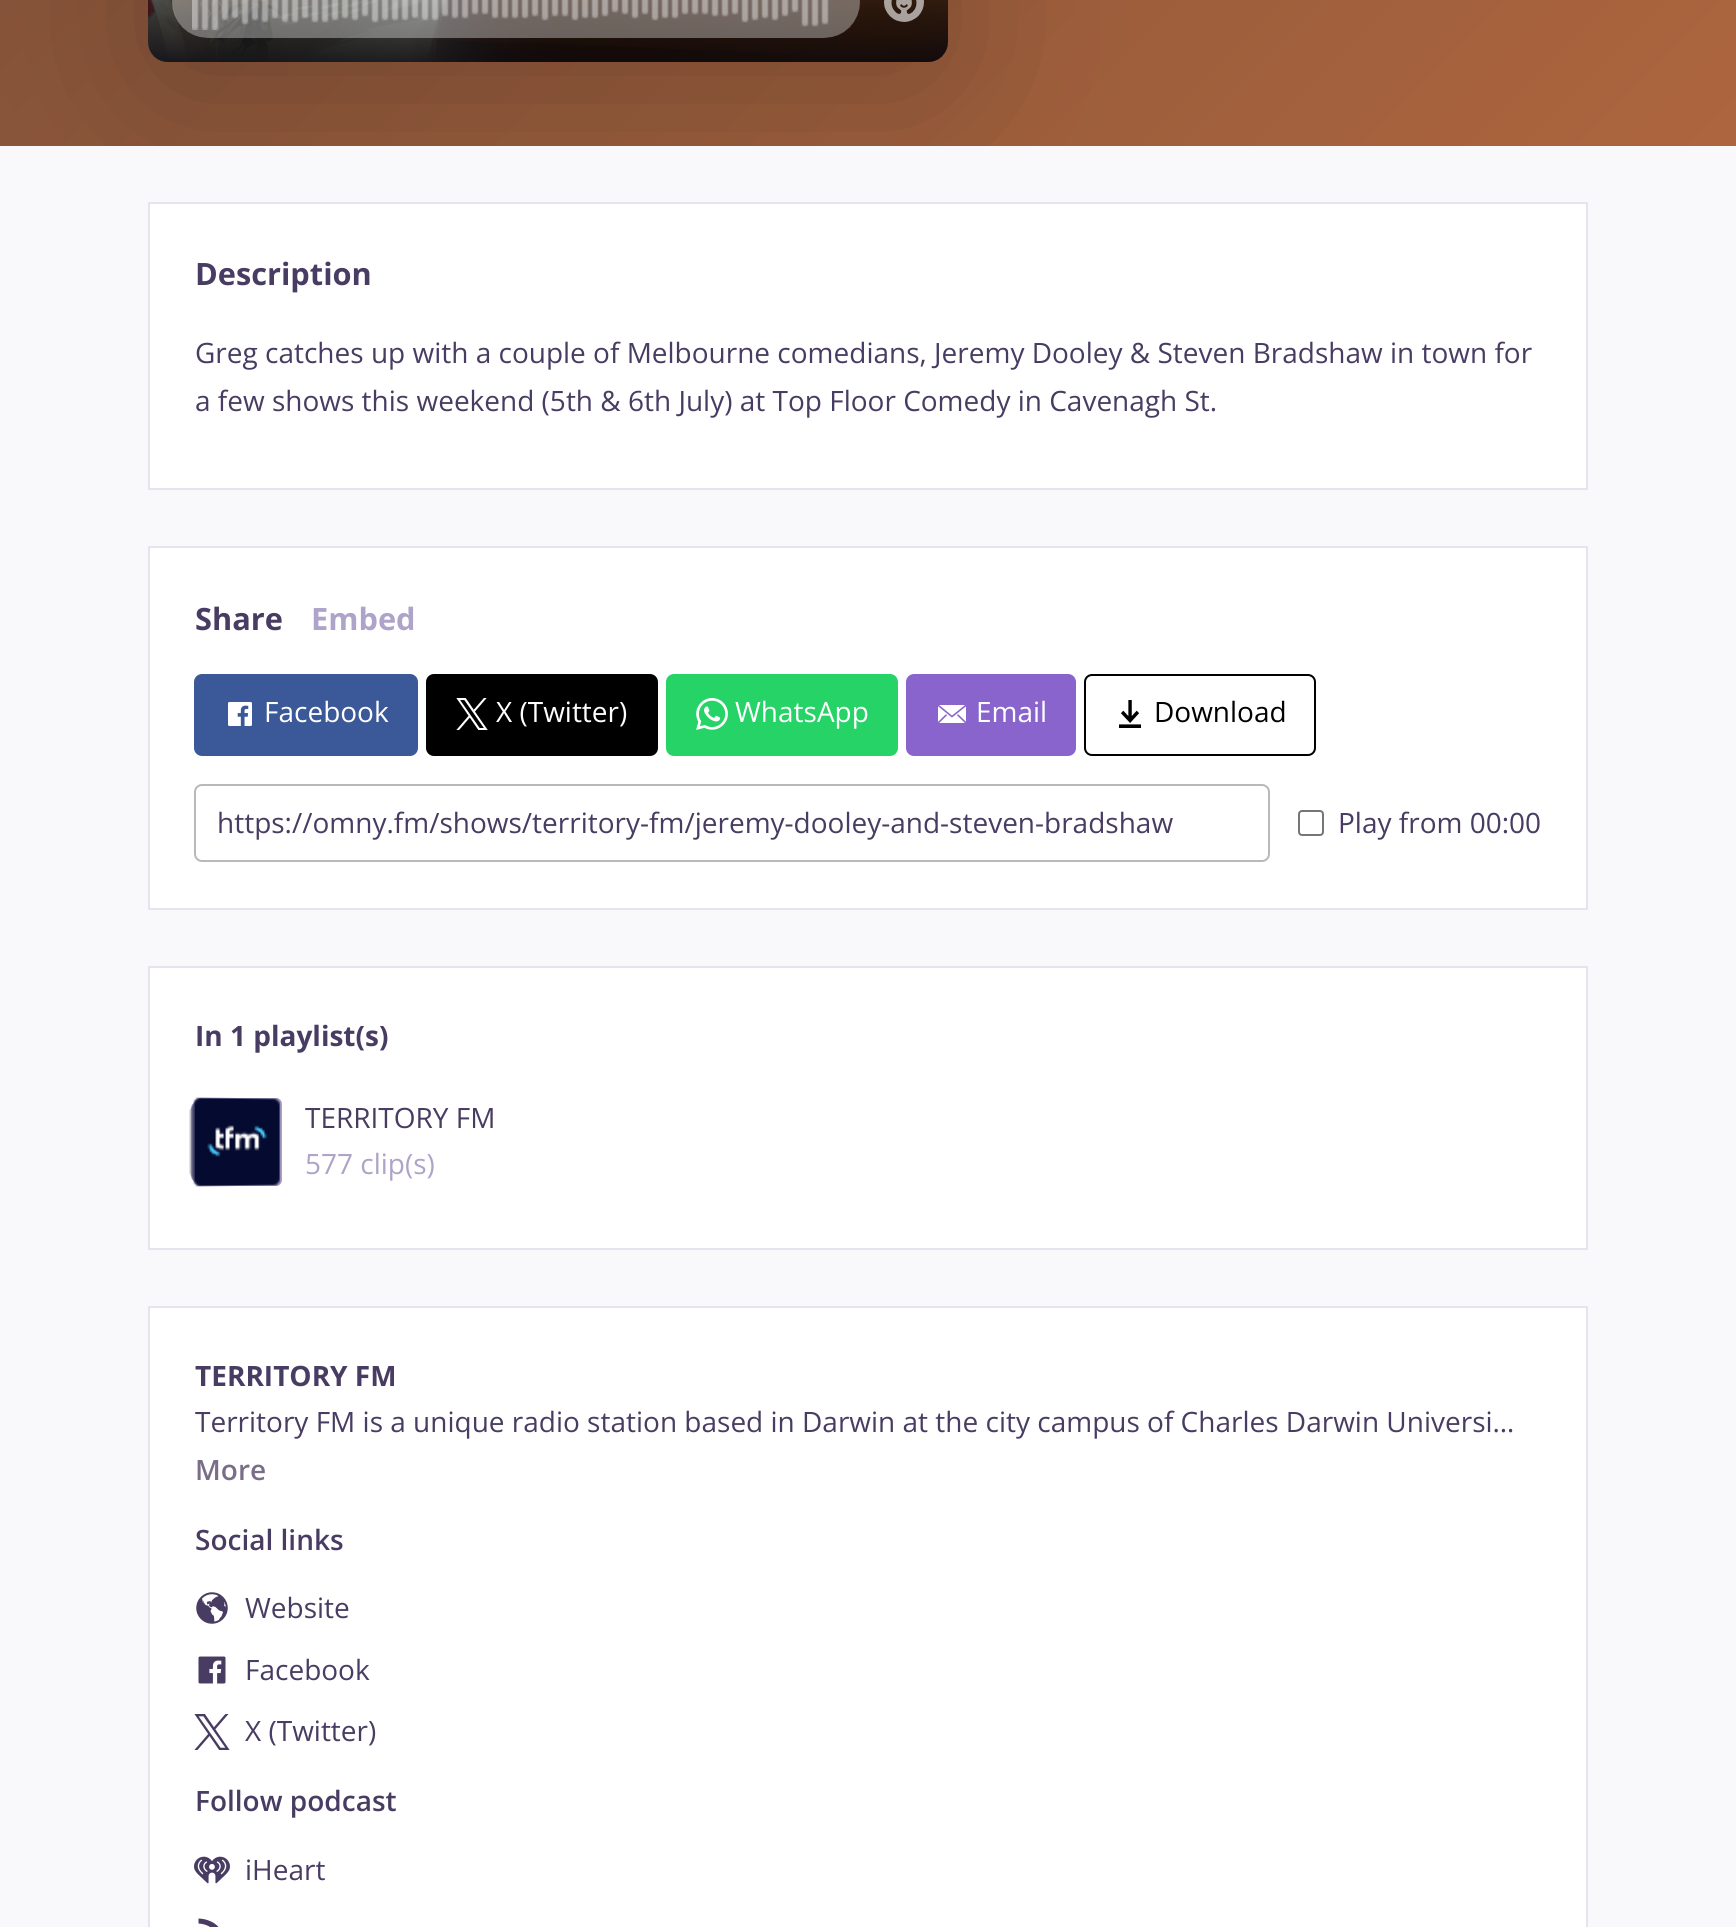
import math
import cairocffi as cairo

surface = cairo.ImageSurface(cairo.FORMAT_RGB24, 1736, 1927)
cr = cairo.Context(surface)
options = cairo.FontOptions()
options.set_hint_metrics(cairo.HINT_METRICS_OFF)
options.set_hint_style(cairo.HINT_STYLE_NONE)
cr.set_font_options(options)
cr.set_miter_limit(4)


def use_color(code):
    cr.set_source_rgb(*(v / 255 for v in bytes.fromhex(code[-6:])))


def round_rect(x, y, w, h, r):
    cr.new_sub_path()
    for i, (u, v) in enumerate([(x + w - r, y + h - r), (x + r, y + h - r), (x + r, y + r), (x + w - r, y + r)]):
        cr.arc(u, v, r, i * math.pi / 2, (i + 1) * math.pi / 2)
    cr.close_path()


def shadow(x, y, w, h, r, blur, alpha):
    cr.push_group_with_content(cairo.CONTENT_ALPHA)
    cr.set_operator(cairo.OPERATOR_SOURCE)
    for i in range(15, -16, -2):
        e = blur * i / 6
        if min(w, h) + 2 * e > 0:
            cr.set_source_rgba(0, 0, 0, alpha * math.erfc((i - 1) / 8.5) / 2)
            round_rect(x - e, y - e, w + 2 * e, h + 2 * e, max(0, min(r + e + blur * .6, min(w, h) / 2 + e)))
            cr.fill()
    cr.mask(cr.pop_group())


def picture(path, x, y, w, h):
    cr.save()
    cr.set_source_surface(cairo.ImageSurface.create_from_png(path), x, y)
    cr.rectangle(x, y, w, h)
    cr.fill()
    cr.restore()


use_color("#f9f8fb")
cr.paint()
gradient = cairo.LinearGradient(192, -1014, 1544, 338)
gradient.add_color_stop_rgba(0, 0.459, 0.298, 0.216, 1)
gradient.add_color_stop_rgba(1, 0.678, 0.396, 0.243, 1)
cr.set_source(gradient)
cr.rectangle(0, 0, 1736, 146)
cr.fill()
use_color("#ffffff")
cr.rectangle(149, 203, 1438, 286)
cr.fill_preserve()
use_color("#e6e2ee")
cr.stroke()
cr.save()
cr.rectangle(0, 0, 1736, 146)
cr.clip()
use_color("#000000")
shadow(148, -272, 800, 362, 20, 84, 0.2)
cr.restore()
picture("img1.png", 148, 0, 800, 62)
cr.select_font_face("Open Sans", cairo.FONT_SLANT_NORMAL, cairo.FONT_WEIGHT_BOLD)
cr.set_font_size(30.75)
use_color("#483c63")
cr.move_to(195, 285)
cr.show_text("Description")
cr.select_font_face("Open Sans")
cr.set_font_size(28)
cr.move_to(195, 363)
cr.show_text("Greg catches up with a couple of Melbourne comedians, Jeremy Dooley & Steven Bradshaw in town for")
cr.move_to(195, 411)
cr.show_text("a few shows this weekend (5th & 6th July) at Top Floor Comedy in Cavenagh St.")
use_color("#ffffff")
cr.rectangle(149, 547, 1438, 362)
cr.fill_preserve()
use_color("#e6e2ee")
cr.stroke()
cr.select_font_face("Open Sans", cairo.FONT_SLANT_NORMAL, cairo.FONT_WEIGHT_BOLD)
cr.set_font_size(30.75)
use_color("#483c63")
cr.move_to(195, 630)
cr.show_text("Share")
use_color("#aea3c8")
cr.move_to(311, 630)
cr.show_text("Embed")
use_color("#3b5998")
round_rect(195, 675, 222, 80, 7)
cr.fill_preserve()
cr.stroke()
picture("img2.png", 228, 702, 24, 24)
cr.select_font_face("Open Sans")
cr.set_font_size(28)
use_color("#ffffff")
cr.move_to(264, 722)
cr.show_text("Facebook")
use_color("#000000")
round_rect(427, 675, 230, 80, 7)
cr.fill_preserve()
cr.stroke()
picture("img3.png", 456, 698, 32, 32)
use_color("#ffffff")
cr.move_to(496, 722)
cr.show_text("X (Twitter)")
use_color("#25d366")
round_rect(667, 675, 230, 80, 7)
cr.fill_preserve()
cr.stroke()
picture("img4.png", 696, 698, 32, 32)
use_color("#ffffff")
cr.move_to(735, 722)
cr.show_text("WhatsApp")
use_color("#8964cc")
round_rect(907, 675, 168, 80, 7)
cr.fill_preserve()
cr.stroke()
picture("img5.png", 938, 705, 28, 18)
use_color("#ffffff")
cr.move_to(976, 722)
cr.show_text("Email")
round_rect(1085, 675, 230, 80, 7)
use_color("#000000")
cr.stroke()
picture("img6.png", 1119, 700, 22, 28)
cr.move_to(1154, 722)
cr.show_text("Download")
round_rect(195, 785, 1074, 76, 7)
use_color("#b9b9b9")
cr.stroke()
use_color("#483c63")
cr.move_to(217, 833)
cr.show_text("https://omny.fm/shows/territory-fm/jeremy-dooley-and-steven-bradshaw")
round_rect(1299, 811, 24, 24, 3)
use_color("#767676")
cr.stroke()
use_color("#483c63")
cr.move_to(1338, 833)
cr.show_text("Play from 00:00")
use_color("#ffffff")
cr.rectangle(149, 967, 1438, 282)
cr.fill_preserve()
use_color("#e6e2ee")
cr.stroke()
cr.select_font_face("Open Sans", cairo.FONT_SLANT_NORMAL, cairo.FONT_WEIGHT_BOLD)
use_color("#483c63")
cr.move_to(195, 1046)
cr.show_text("In 1 playlist(s)")
use_color("#efecf4")
round_rect(190, 1106, 70, 70, 5)
cr.fill()
picture("img9.png", 189, 1106, 5, 72)
cr.set_source_rgba(0.686, 0.631, 0.792, 0.5)
round_rect(192, 1102, 78, 80, 5)
cr.fill()
picture("img8.png", 191, 1102, 4, 80)
use_color("#afa1ca")
round_rect(194, 1098, 88, 88, 6)
cr.fill()
picture("img7.png", 193, 1097, 88, 90)
cr.select_font_face("Open Sans")
use_color("#483c63")
cr.move_to(305, 1128)
cr.show_text("TERRITORY FM")
use_color("#aea3c8")
cr.move_to(305, 1174)
cr.show_text("577 clip(s)")
use_color("#ffffff")
cr.rectangle(149, 1307, 1438, 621)
cr.fill_preserve()
use_color("#e6e2ee")
cr.stroke()
cr.select_font_face("Open Sans", cairo.FONT_SLANT_NORMAL, cairo.FONT_WEIGHT_BOLD)
use_color("#483c63")
cr.move_to(195, 1386)
cr.show_text("TERRITORY FM")
cr.select_font_face("Open Sans")
cr.move_to(195, 1432)
cr.show_text("Territory FM is a unique radio station based in Darwin at the city campus of Charles Darwin Universi…")
cr.select_font_face("Open Sans SemiBold")
use_color("#796e87")
cr.move_to(195, 1480)
cr.show_text("More")
use_color("#483c63")
cr.move_to(195, 1550)
cr.show_text("Social links")
picture("img10.png", 196, 1592, 32, 32)
cr.select_font_face("Open Sans")
cr.move_to(245, 1618)
cr.show_text("Website")
picture("img11.png", 198, 1656, 28, 28)
cr.move_to(245, 1680)
cr.show_text("Facebook")
picture("img12.png", 194, 1714, 36, 36)
cr.move_to(245, 1741)
cr.show_text("X (Twitter)")
cr.select_font_face("Open Sans SemiBold")
cr.move_to(195, 1811)
cr.show_text("Follow podcast")
picture("img13.png", 194, 1856, 36, 28)
cr.select_font_face("Open Sans")
cr.move_to(245, 1880)
cr.show_text("iHeart")
picture("img14.png", 198, 1918, 21, 9)
surface.write_to_png("result.png")
